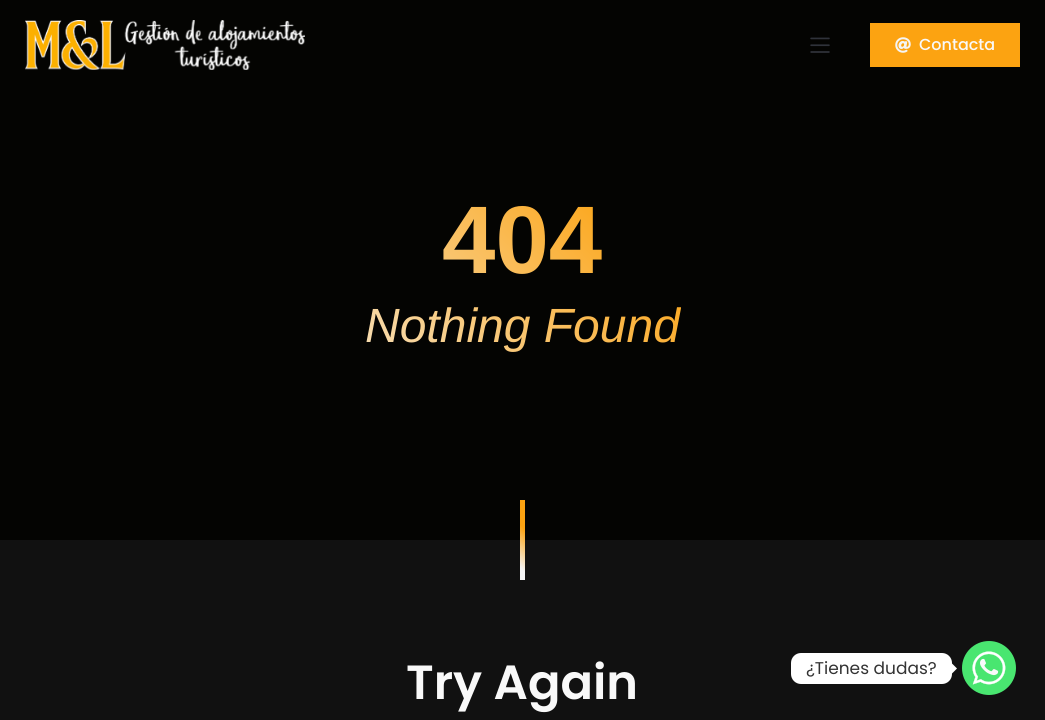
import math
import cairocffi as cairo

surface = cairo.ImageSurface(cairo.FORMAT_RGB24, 1045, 720)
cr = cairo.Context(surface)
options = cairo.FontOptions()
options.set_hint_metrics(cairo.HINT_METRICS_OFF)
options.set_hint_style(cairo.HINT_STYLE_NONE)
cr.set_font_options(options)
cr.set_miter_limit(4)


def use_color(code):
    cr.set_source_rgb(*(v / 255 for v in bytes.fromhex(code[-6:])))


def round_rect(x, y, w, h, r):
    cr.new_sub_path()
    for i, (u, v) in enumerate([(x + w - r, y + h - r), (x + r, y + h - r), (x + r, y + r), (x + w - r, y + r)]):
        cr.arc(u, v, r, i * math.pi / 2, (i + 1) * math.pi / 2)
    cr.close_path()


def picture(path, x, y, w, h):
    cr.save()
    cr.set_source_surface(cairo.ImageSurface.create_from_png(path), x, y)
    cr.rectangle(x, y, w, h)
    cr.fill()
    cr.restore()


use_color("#111111")
cr.paint()
use_color("#040402")
cr.rectangle(0, 0, 1045, 540)
cr.fill()
picture("img1.png", 25, 20, 280, 50)
picture("img2.png", 810, 37, 20, 16)
use_color("#fca311")
cr.rectangle(870, 23, 150, 44)
cr.fill()
picture("img3.png", 895, 37, 16, 16)
cr.select_font_face("Poppins Medium")
cr.set_font_size(16)
use_color("#f9f9f9")
cr.move_to(919, 50)
cr.show_text("Contacta")
cr.select_font_face("Liberation Sans", cairo.FONT_SLANT_NORMAL, cairo.FONT_WEIGHT_BOLD)
cr.set_font_size(96)
gradient = cairo.LinearGradient(223, 567, 822, -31)
gradient.add_color_stop_rgba(0.15, 0.961, 0.961, 0.961, 1)
gradient.add_color_stop_rgba(0.65, 0.988, 0.639, 0.067, 1)
cr.set_source(gradient)
cr.move_to(442, 273)
cr.show_text("404")
cr.select_font_face("Liberation Sans", cairo.FONT_SLANT_ITALIC)
cr.set_font_size(48)
cr.move_to(365, 342)
cr.show_text("Nothing Found")
gradient = cairo.LinearGradient(501, 561, 544, 519)
gradient.add_color_stop_rgba(0.15, 0.961, 0.961, 0.961, 1)
gradient.add_color_stop_rgba(0.65, 0.988, 0.639, 0.067, 1)
cr.set_source(gradient)
cr.rectangle(520, 500, 5, 80)
cr.fill()
cr.select_font_face("Poppins SemiBold")
use_color("#f9f9f9")
cr.move_to(406, 699)
cr.show_text("Try Again")
use_color("#ffffff")
round_rect(791, 653, 161, 31, 10)
cr.fill()
cr.select_font_face("Poppins")
cr.set_font_size(17)
use_color("#333333")
cr.move_to(806, 674)
cr.show_text("¿Tienes dudas?")
use_color("#ffffff")
cr.new_path()
cr.move_to(952, 673.5)
cr.line_to(952, 663.5)
cr.line_to(957, 668.5)
cr.close_path()
cr.fill()
picture("img4.png", 962, 641, 54, 54)
surface.write_to_png("result.png")
